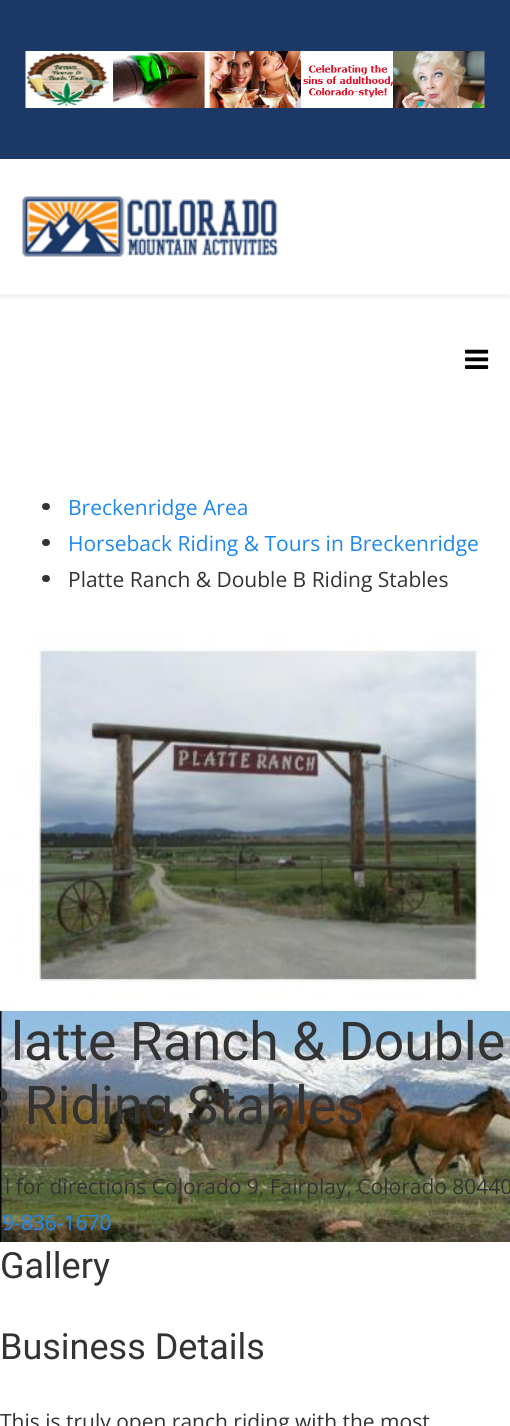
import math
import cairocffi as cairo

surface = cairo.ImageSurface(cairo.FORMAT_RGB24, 510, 1426)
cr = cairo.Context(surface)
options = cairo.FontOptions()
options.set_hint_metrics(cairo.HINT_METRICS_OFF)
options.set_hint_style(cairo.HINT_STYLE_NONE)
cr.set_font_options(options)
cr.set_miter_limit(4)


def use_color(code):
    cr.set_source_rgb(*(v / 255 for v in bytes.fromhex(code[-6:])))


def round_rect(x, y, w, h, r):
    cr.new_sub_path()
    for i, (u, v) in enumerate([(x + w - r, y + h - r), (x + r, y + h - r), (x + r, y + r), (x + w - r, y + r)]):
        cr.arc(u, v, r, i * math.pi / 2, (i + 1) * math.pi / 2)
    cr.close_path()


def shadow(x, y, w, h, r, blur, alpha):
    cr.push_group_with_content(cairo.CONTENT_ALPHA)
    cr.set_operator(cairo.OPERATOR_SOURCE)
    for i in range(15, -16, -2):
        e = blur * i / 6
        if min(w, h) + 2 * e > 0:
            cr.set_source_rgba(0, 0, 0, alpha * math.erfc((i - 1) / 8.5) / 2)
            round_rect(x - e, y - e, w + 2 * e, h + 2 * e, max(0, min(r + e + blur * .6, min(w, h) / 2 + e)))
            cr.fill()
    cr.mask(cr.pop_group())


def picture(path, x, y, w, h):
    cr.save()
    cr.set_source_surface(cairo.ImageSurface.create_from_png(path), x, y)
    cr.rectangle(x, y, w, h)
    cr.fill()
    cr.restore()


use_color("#ffffff")
cr.paint()
use_color("#1b3867")
cr.rectangle(0, 0, 510, 159)
cr.fill()
picture("img1.png", 25, 51, 460, 57)
cr.save()
cr.rectangle(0, 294, 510, 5)
cr.clip()
use_color("#000000")
shadow(0, 164, 510, 135, 0, 2, 0.05)
cr.restore()
picture("img2.png", 22, 196, 256, 61)
picture("img3.png", 465, 349, 24, 20)
use_color("#333333")
round_rect(42, 503, 8, 7, 3.5)
cr.fill()
cr.select_font_face("Open Sans")
cr.set_font_size(21)
use_color("#1e87f0")
cr.move_to(68, 515)
cr.show_text("Breckenridge Area")
use_color("#333333")
round_rect(42, 539, 8, 7, 3.5)
cr.fill()
use_color("#1e87f0")
cr.move_to(68, 551)
cr.show_text("Horseback Riding & Tours in Breckenridge")
use_color("#333333")
round_rect(42, 575, 8, 7, 3.5)
cr.fill()
cr.move_to(68, 587)
cr.show_text("Platte Ranch & Double B Riding Stables")
picture("img4.png", 0, 1011, 510, 231)
picture("img5.png", 0, 627, 510, 384)
cr.select_font_face("Roboto")
cr.set_font_size(53.5)
cr.move_to(11, 1060)
cr.show_text("latte Ranch & Double")
cr.move_to(-22, 1124)
cr.show_text("B Riding Stables")
cr.select_font_face("Open Sans")
cr.set_font_size(21)
cr.move_to(5, 1194)
cr.show_text("l for directions Colorado 9, Fairplay, Colorado 80440")
use_color("#1e87f0")
cr.move_to(2, 1230)
cr.show_text("9-836-1670")
cr.select_font_face("Roboto")
cr.set_font_size(36)
use_color("#333333")
cr.move_to(0, 1278)
cr.show_text("Gallery")
cr.move_to(0, 1359)
cr.show_text("Business Details")
cr.select_font_face("Open Sans")
cr.set_font_size(21)
cr.move_to(0, 1429)
cr.show_text("This is truly open ranch riding with the most")
surface.write_to_png("result.png")
